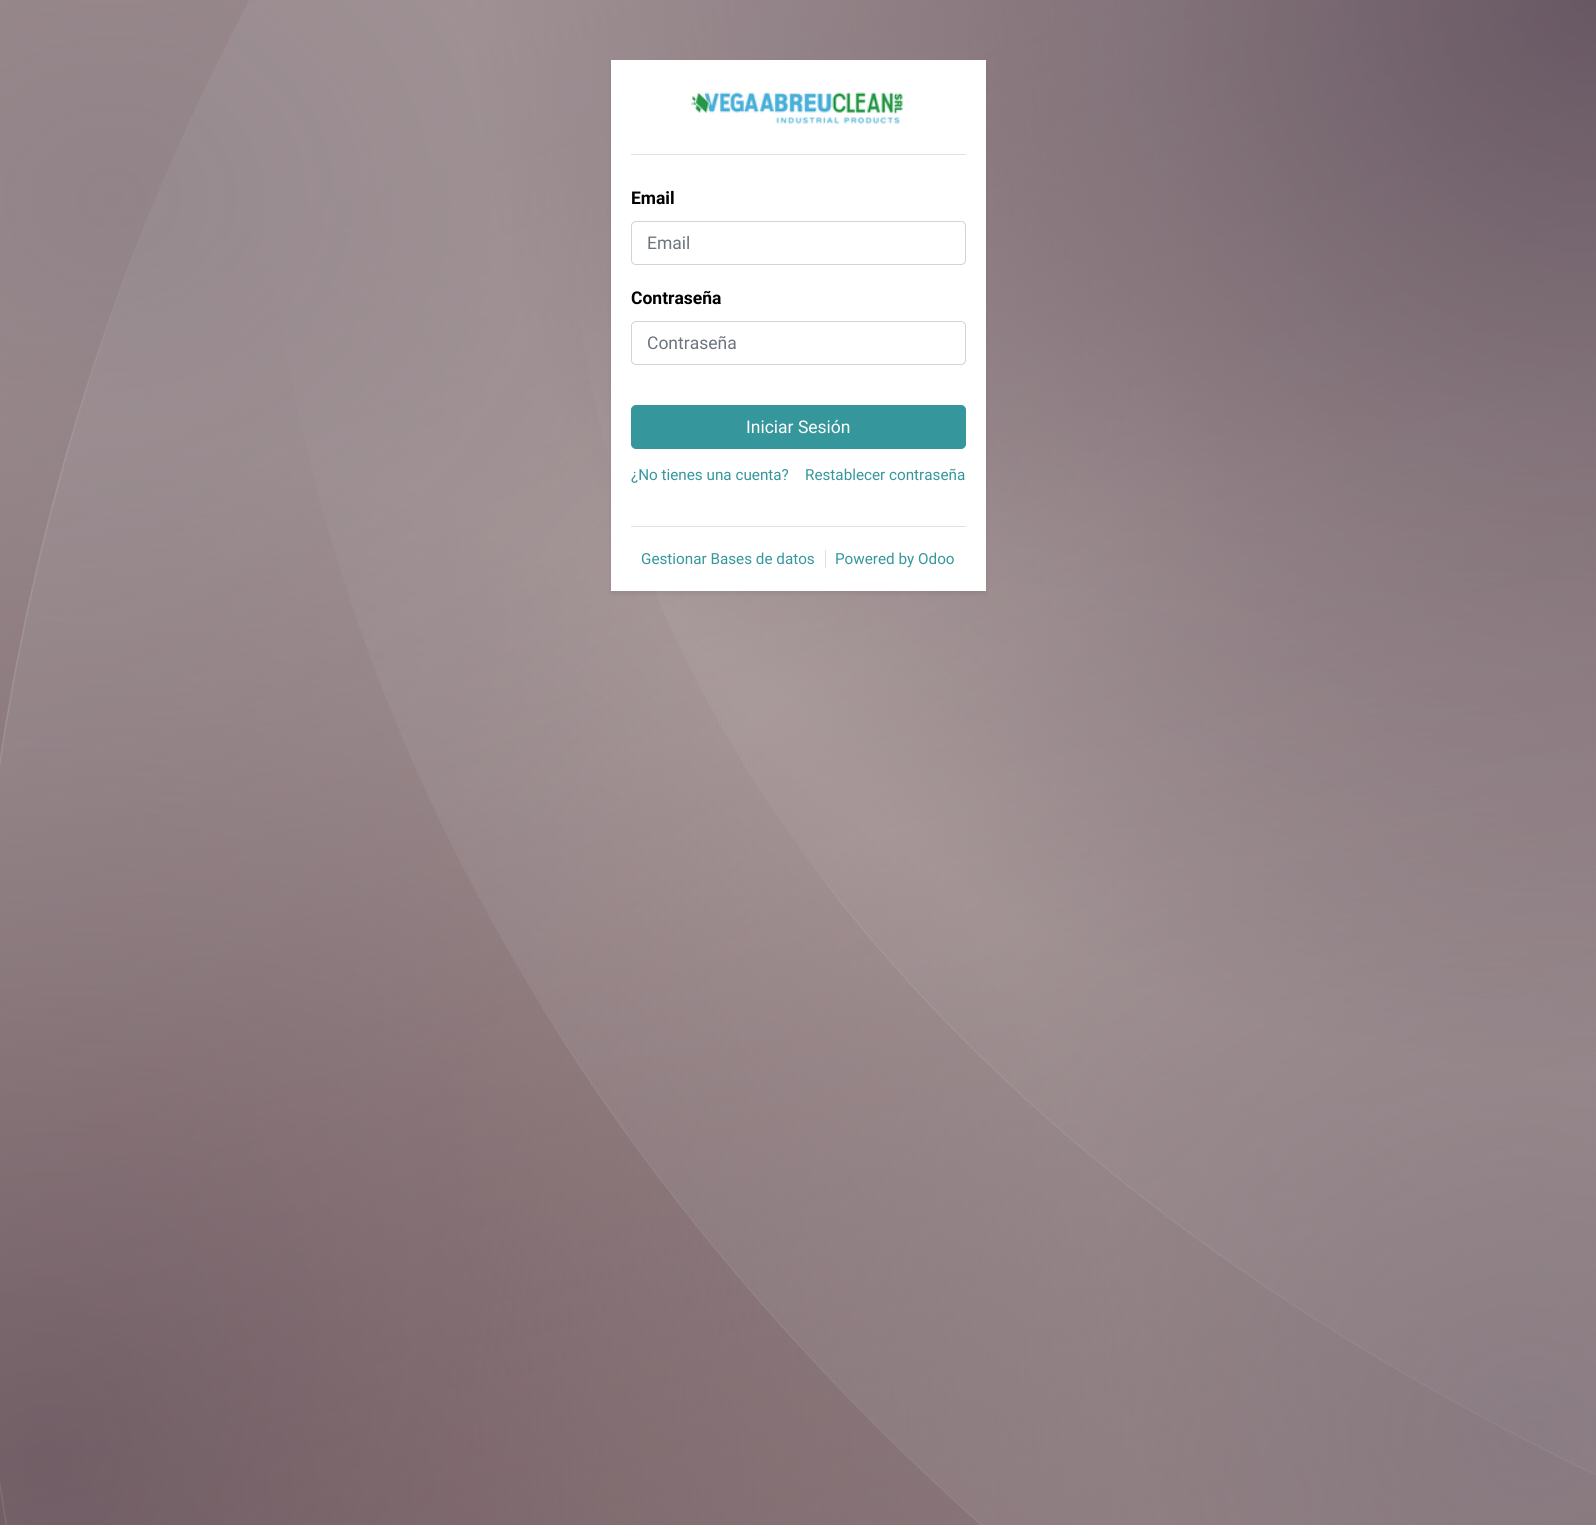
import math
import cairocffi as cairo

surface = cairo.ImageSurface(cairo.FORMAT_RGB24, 1596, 1525)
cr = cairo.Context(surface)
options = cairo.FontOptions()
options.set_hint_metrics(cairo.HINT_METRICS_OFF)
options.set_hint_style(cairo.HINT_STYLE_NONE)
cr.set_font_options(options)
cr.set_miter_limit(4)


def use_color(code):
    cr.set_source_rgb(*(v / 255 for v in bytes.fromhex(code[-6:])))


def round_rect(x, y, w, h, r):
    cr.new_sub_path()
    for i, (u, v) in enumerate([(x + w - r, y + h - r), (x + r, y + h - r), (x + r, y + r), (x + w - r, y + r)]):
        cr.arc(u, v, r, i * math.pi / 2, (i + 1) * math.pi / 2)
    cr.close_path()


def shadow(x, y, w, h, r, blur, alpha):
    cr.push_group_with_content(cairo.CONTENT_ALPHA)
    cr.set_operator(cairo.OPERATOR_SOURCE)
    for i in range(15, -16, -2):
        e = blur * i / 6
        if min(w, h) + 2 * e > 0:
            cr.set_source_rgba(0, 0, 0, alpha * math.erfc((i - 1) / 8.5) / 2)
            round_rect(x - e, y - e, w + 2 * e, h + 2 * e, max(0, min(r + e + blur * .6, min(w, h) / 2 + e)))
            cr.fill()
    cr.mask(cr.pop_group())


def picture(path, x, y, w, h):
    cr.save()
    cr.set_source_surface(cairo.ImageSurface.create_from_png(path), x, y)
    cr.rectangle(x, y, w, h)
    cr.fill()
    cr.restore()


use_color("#917878")
cr.paint()
picture("img1.png", 0, 0, 1596, 1525)
use_color("#000000")
shadow(611, 63, 375, 531, 0, 2.5, 0.07)
use_color("#ffffff")
cr.rectangle(611, 60, 375, 531)
cr.fill()
use_color("#dee2e6")
cr.rectangle(631, 154, 335, 1)
cr.fill()
picture("img2.png", 691, 92, 212, 32)
cr.select_font_face("Roboto", cairo.FONT_SLANT_NORMAL, cairo.FONT_WEIGHT_BOLD)
cr.set_font_size(17.5)
use_color("#000000")
cr.move_to(631, 204)
cr.show_text("Email")
round_rect(631.5, 221.5, 334, 43, 4.5)
use_color("#ced4da")
cr.set_line_width(1)
cr.stroke()
cr.select_font_face("Roboto")
use_color("#6c757d")
cr.move_to(647, 249)
cr.show_text("Email")
cr.select_font_face("Roboto", cairo.FONT_SLANT_NORMAL, cairo.FONT_WEIGHT_BOLD)
use_color("#000000")
cr.move_to(631, 304)
cr.show_text("Contraseña")
round_rect(631.5, 321.5, 334, 43, 4.5)
use_color("#ced4da")
cr.stroke()
cr.select_font_face("Roboto")
use_color("#6c757d")
cr.move_to(647, 349)
cr.show_text("Contraseña")
use_color("#35979c")
round_rect(631.5, 405.5, 334, 43, 4.5)
cr.fill_preserve()
cr.stroke()
use_color("#ffffff")
cr.move_to(746, 433)
cr.show_text("Iniciar Sesión")
cr.set_font_size(15.25)
use_color("#35979c")
cr.move_to(631, 480)
cr.show_text("¿No tienes una cuenta?")
cr.move_to(805, 480)
cr.show_text("Restablecer contraseña")
use_color("#dee2e6")
cr.rectangle(631, 526, 335, 1)
cr.fill()
use_color("#35979c")
cr.move_to(641, 564)
cr.show_text("Gestionar Bases de datos")
use_color("#dee2e6")
cr.rectangle(825, 550, 1, 18)
cr.fill()
use_color("#35979c")
cr.move_to(835, 564)
cr.show_text("Powered by Odoo")
surface.write_to_png("result.png")
